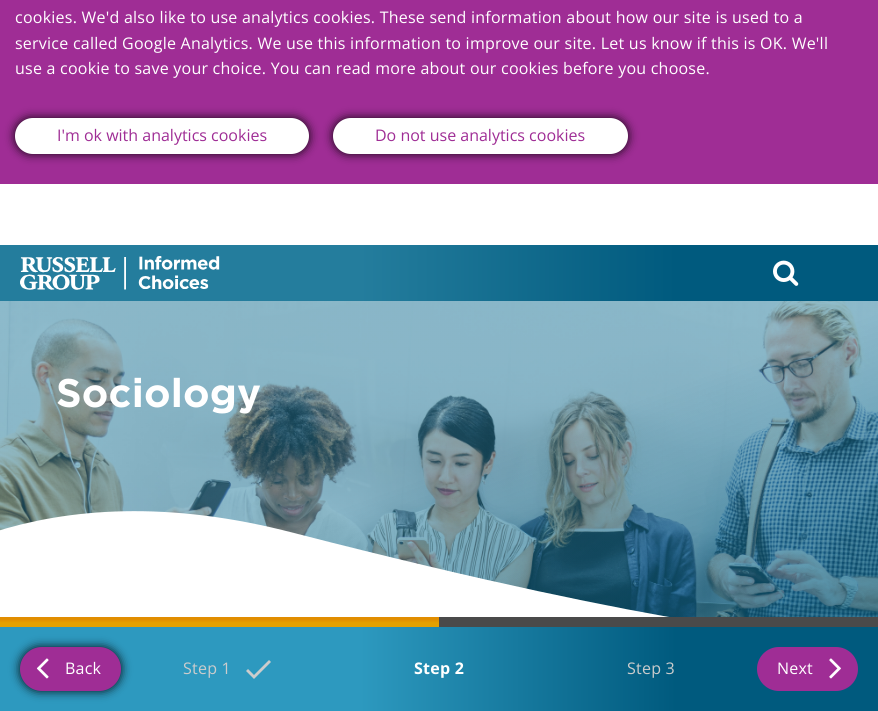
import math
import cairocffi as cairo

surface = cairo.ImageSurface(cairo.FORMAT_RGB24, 878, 711)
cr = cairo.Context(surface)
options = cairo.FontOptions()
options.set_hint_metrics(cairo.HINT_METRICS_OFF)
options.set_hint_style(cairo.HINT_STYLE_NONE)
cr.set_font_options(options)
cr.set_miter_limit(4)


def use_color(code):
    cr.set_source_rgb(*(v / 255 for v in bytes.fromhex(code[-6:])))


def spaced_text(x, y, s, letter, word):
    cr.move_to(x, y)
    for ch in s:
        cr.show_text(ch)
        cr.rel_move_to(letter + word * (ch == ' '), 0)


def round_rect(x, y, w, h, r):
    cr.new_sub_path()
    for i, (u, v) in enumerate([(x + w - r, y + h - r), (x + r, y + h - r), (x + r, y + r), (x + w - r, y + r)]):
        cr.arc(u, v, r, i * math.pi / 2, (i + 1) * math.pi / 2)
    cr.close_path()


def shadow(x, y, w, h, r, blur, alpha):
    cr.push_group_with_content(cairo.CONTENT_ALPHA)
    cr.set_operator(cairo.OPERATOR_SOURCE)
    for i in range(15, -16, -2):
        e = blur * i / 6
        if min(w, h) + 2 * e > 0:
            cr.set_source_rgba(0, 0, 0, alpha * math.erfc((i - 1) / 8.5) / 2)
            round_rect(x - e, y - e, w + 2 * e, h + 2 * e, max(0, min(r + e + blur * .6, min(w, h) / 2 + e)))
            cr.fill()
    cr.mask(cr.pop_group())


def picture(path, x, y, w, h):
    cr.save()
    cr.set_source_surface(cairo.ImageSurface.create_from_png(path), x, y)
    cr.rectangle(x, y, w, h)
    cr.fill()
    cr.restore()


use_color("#ffffff")
cr.paint()
use_color("#9f2d95")
cr.rectangle(0, 0, 878, 184)
cr.fill()
cr.select_font_face("Open Sans")
cr.set_font_size(16)
use_color("#ffffff")
spaced_text(15, 23, "cookies. We'd also like to use analytics cookies. These send information about how our site is used to a", 0.24, 0)
spaced_text(15, 49, "service called Google Analytics. We use this information to improve our site. Let us know if this is OK. We'll", 0.24, 0)
spaced_text(15, 74, "use a cookie to save your choice. You can read more about our cookies", 0.24, 0)
spaced_text(563, 74, "before you choose.", 0.24, 0)
use_color("#000000")
shadow(15, 118, 294, 36, 18, 5, 0.9)
use_color("#ffffff")
round_rect(16, 119, 292, 34, 17)
cr.fill_preserve()
cr.stroke()
use_color("#9f2d95")
cr.move_to(57, 141)
cr.show_text("I'm ok with analytics cookies")
use_color("#000000")
shadow(333, 118, 295, 36, 18, 5, 0.9)
use_color("#ffffff")
round_rect(334, 119, 293, 34, 17)
cr.fill_preserve()
cr.stroke()
use_color("#9f2d95")
cr.move_to(375, 141)
cr.show_text("Do not use analytics cookies")
gradient = cairo.LinearGradient(0, 273, 878, 273)
gradient.add_color_stop_rgba(0, 0.141, 0.49, 0.616, 1)
gradient.add_color_stop_rgba(0.41, 0.141, 0.49, 0.616, 1)
gradient.add_color_stop_rgba(0.77, 0, 0.353, 0.494, 1)
gradient.add_color_stop_rgba(1, 0, 0.353, 0.494, 1)
cr.set_source(gradient)
cr.rectangle(0, 245, 878, 56)
cr.fill()
picture("img1.png", 20, 256, 200, 34)
picture("img2.png", 773, 260, 26, 26)
picture("img3.png", 0, 301, 878, 316)
cr.select_font_face("Gotham", cairo.FONT_SLANT_NORMAL, cairo.FONT_WEIGHT_BOLD)
cr.set_font_size(40)
use_color("#ffffff")
spaced_text(56, 407, "Sociology", 0.24, 0)
cr.new_path()
cr.move_to(805, 635)
cr.curve_to(805, 635, 683, 633, 294, 533)
cr.curve_to(168, 500, 68, 508, -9, 533)
cr.line_to(-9, 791)
cr.line_to(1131, 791)
cr.line_to(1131, 533)
cr.curve_to(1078, 551, 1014, 596, 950, 616)
cr.curve_to(872, 639, 805, 635, 805, 635)
cr.close_path()
cr.fill()
use_color("#4a4a4a")
cr.rectangle(439, 617, 439, 10)
cr.fill()
gradient = cairo.LinearGradient(220, 627, 220, 617)
gradient.add_color_stop_rgba(0, 0.894, 0.631, 0, 1)
gradient.add_color_stop_rgba(0.41, 0.894, 0.631, 0, 1)
gradient.add_color_stop_rgba(0.77, 0.882, 0.553, 0, 1)
gradient.add_color_stop_rgba(1, 0.882, 0.553, 0, 1)
cr.set_source(gradient)
cr.rectangle(0, 617, 439, 10)
cr.fill()
gradient = cairo.LinearGradient(0, 669, 878, 669)
gradient.add_color_stop_rgba(0, 0.176, 0.6, 0.749, 1)
gradient.add_color_stop_rgba(0.41, 0.176, 0.6, 0.749, 1)
gradient.add_color_stop_rgba(0.77, 0, 0.353, 0.494, 1)
gradient.add_color_stop_rgba(1, 0, 0.353, 0.494, 1)
cr.set_source(gradient)
cr.rectangle(0, 627, 878, 84)
cr.fill()
use_color("#000000")
shadow(20, 647, 101, 44, 22, 5, 0.9)
use_color("#9f2d95")
round_rect(20, 647, 101, 44, 22)
cr.fill()
picture("img4.png", 36, 658, 13, 21)
cr.select_font_face("Open Sans")
cr.set_font_size(16)
use_color("#ffffff")
spaced_text(65, 674, "Back", 0.24, 0)
use_color("#cccccc")
spaced_text(183, 674, "Step 1", 0.24, 0)
cr.new_path()
cr.move_to(254, 675)
cr.line_to(248, 669)
cr.line_to(246, 671)
cr.line_to(254, 679)
cr.line_to(271, 662)
cr.line_to(269, 660)
cr.close_path()
cr.fill()
cr.select_font_face("Open Sans", cairo.FONT_SLANT_NORMAL, cairo.FONT_WEIGHT_BOLD)
use_color("#ffffff")
spaced_text(414, 674, "Step 2", 0.24, 0)
cr.select_font_face("Open Sans")
use_color("#cccccc")
spaced_text(627, 674, "Step 3", 0.24, 0)
use_color("#9f2d95")
round_rect(757, 647, 101, 44, 22)
cr.fill()
use_color("#ffffff")
spaced_text(777, 674, "Next", 0.24, 0)
picture("img5.png", 829, 658, 12, 21)
surface.write_to_png("result.png")
